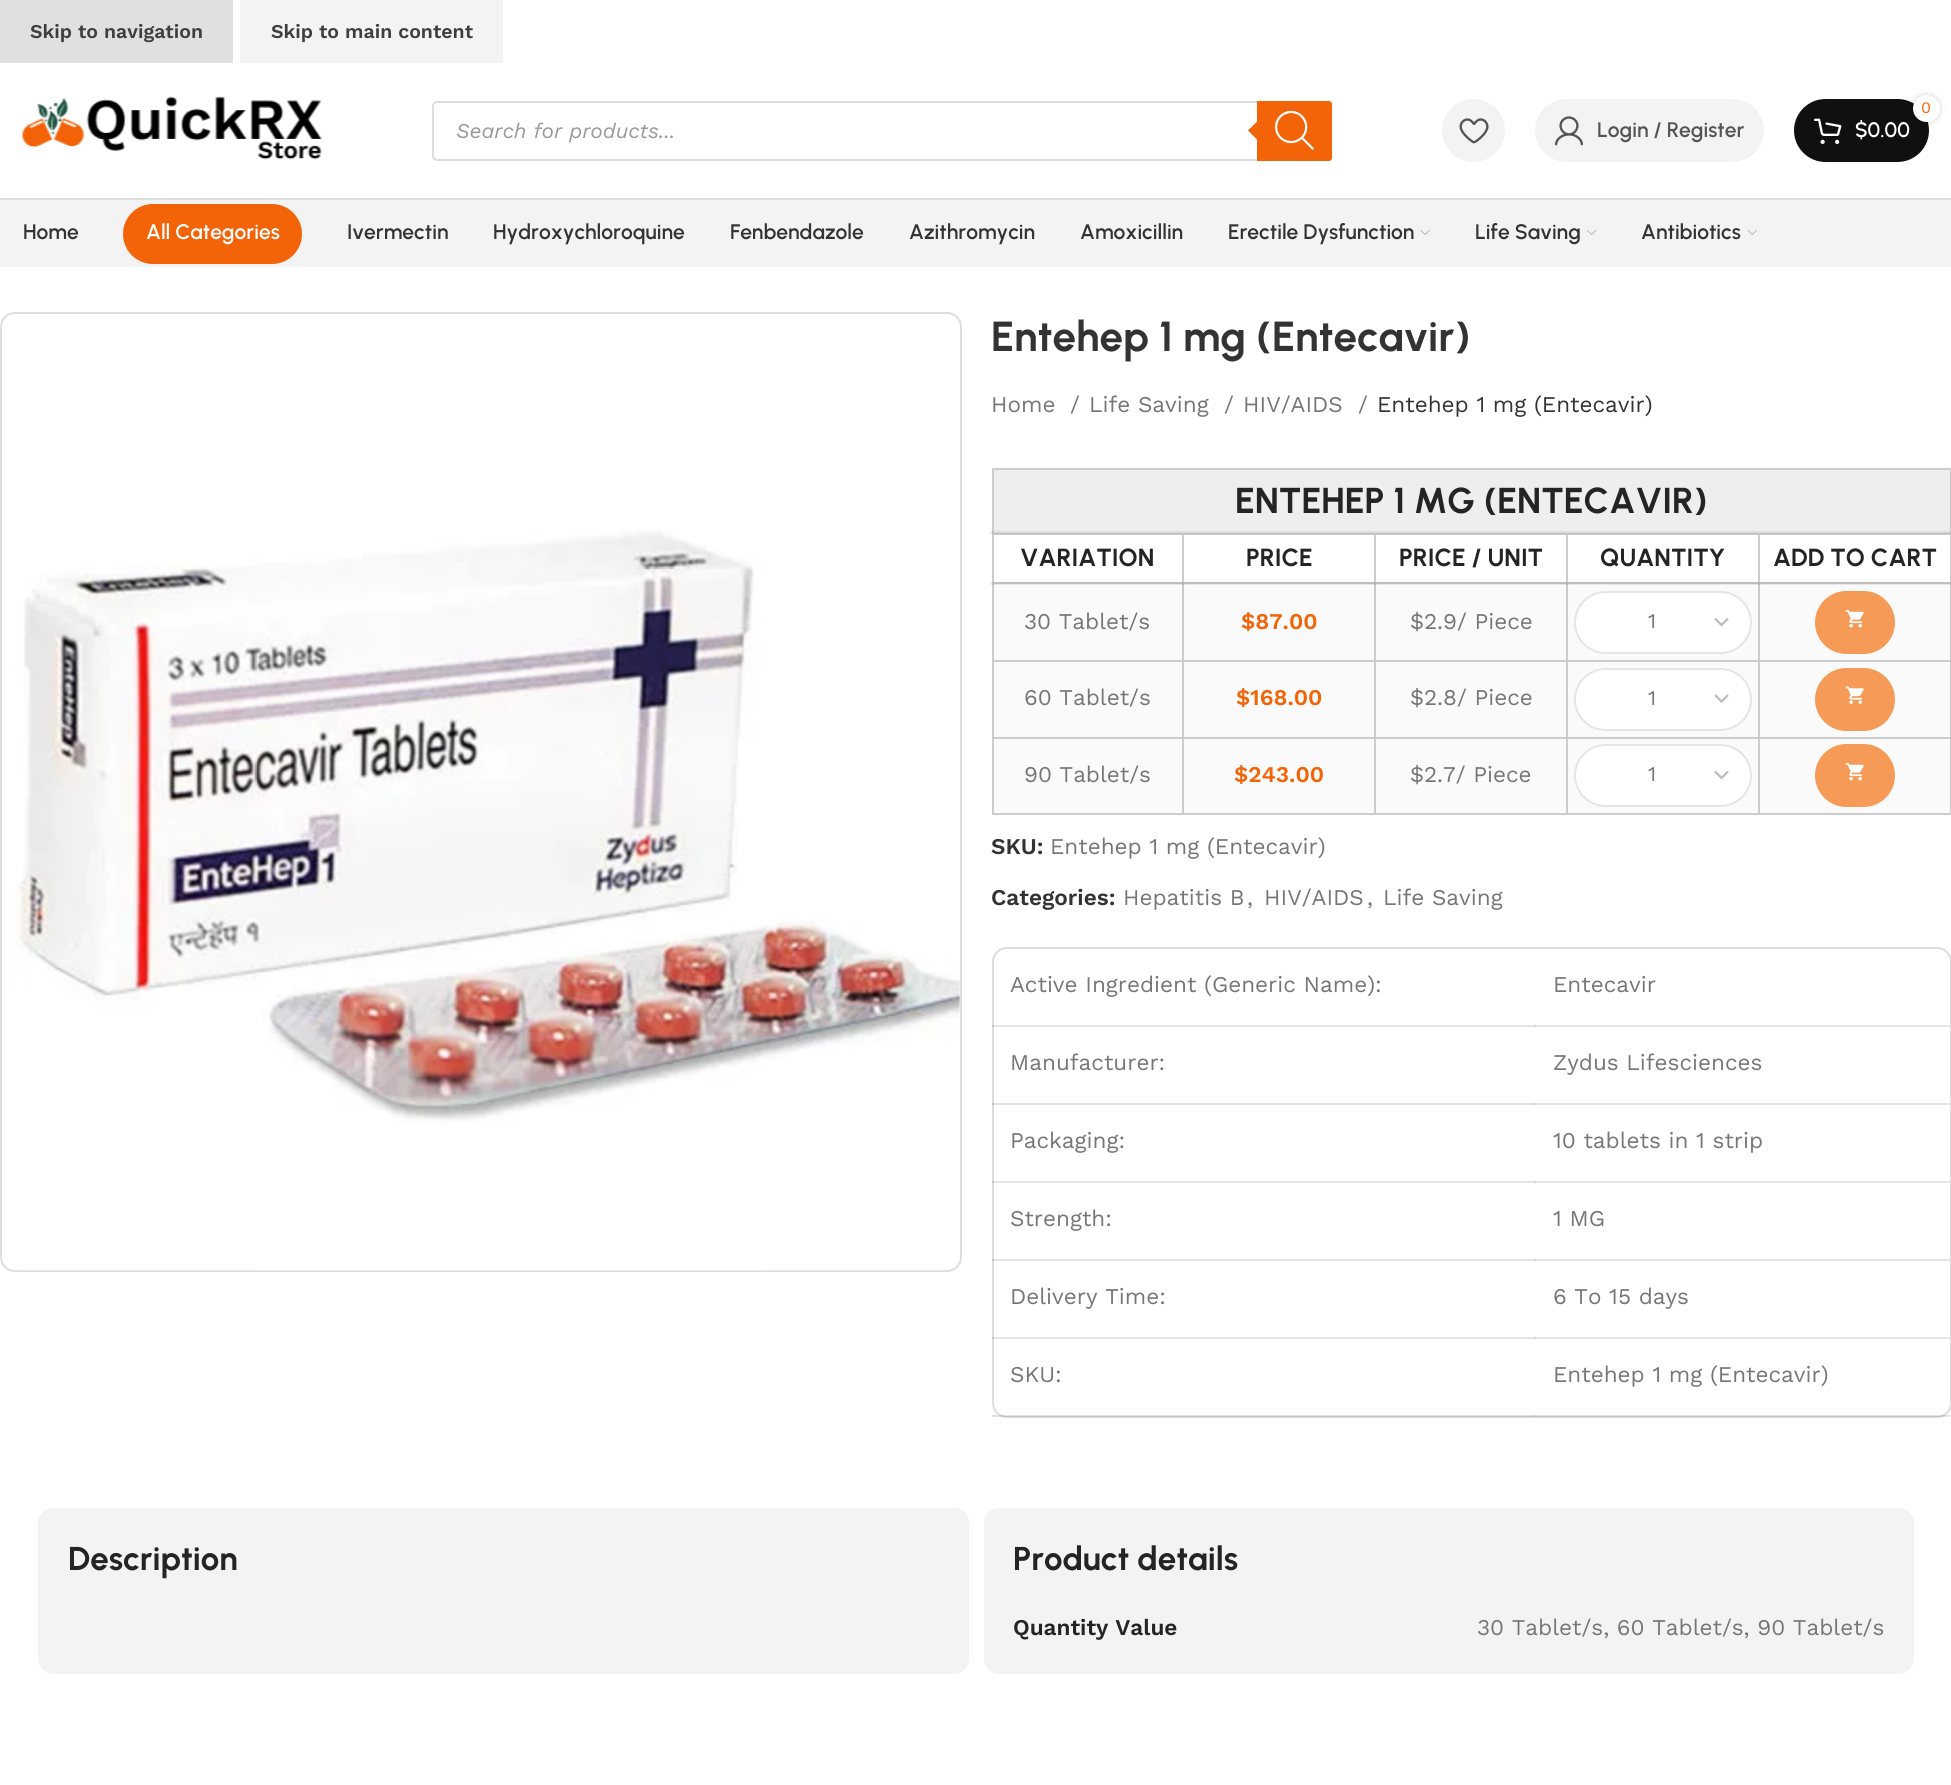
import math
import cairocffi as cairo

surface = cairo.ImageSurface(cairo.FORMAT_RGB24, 1951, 1785)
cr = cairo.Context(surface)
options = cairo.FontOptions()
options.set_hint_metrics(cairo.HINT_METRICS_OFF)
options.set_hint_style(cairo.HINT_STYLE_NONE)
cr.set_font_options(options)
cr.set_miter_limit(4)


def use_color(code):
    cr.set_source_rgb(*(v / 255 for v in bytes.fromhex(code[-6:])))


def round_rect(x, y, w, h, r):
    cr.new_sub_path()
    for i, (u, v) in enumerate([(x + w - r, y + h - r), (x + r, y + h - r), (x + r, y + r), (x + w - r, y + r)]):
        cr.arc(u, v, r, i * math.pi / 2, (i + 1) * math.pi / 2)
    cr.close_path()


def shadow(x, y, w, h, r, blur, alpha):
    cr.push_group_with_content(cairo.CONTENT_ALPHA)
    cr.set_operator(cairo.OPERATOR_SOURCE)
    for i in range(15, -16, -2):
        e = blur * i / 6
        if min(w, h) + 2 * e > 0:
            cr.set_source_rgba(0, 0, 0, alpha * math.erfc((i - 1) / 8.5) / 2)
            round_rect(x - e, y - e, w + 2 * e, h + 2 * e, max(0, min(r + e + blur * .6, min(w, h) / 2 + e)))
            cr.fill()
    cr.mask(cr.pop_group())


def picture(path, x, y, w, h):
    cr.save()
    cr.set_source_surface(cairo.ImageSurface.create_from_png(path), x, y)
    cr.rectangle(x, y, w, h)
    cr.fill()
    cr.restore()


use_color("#ffffff")
cr.paint()
use_color("#ededed")
cr.rectangle(990, 531, 2, 3)
cr.fill()
cr.rectangle(990, 582, 2, 3)
cr.fill()
use_color("#e0e0e0")
cr.rectangle(0, 0, 233, 63)
cr.fill()
cr.select_font_face("Work Sans SemiBold")
cr.set_font_size(19.5)
use_color("#3e3e3e")
cr.move_to(30, 38)
cr.show_text("Skip to navigation")
use_color("#f3f3f3")
cr.rectangle(240, 0, 263, 63)
cr.fill()
use_color("#3e3e3e")
cr.move_to(271, 38)
cr.show_text("Skip to main content")
use_color("#dddddd")
cr.rectangle(0, 198, 1951, 2)
cr.fill()
picture("img1.png", 22, 96, 300, 64)
round_rect(433, 102, 898, 58, 4)
cr.stroke()
cr.select_font_face("Work Sans", cairo.FONT_SLANT_ITALIC)
cr.set_font_size(21)
use_color("#999999")
cr.move_to(456, 138)
cr.show_text("Search for products...")
use_color("#f36307")
cr.new_path()
cr.move_to(1257, 101)
cr.line_to(1329, 101)
cr.curve_to(1330.5, 101, 1332, 102.5, 1332, 104)
cr.line_to(1332, 158)
cr.curve_to(1332, 159.5, 1330.5, 161, 1329, 161)
cr.line_to(1257, 161)
cr.close_path()
cr.fill()
cr.new_path()
cr.move_to(1260, 118.5)
cr.line_to(1260, 142.5)
cr.line_to(1248, 130.5)
cr.close_path()
cr.fill()
picture("img2.png", 1275, 111, 39, 39)
use_color("#f3f3f3")
cr.arc(1473.5, 130.5, 31.5, 0, 2 * math.pi)
cr.fill()
picture("img3.png", 1459, 118, 30, 26)
round_rect(1535, 99, 229, 63, 31.5)
cr.fill()
picture("img4.png", 1555, 116, 28, 30)
cr.select_font_face("Urbanist SemiBold")
use_color("#545454")
cr.move_to(1597, 137)
cr.show_text("Login / Register")
use_color("#101010")
round_rect(1794, 99, 135, 63, 31.5)
cr.fill()
use_color("#000000")
shadow(1913, 95, 27, 27, 13.5, 3, 0.17)
use_color("#ffffff")
cr.arc(1926.5, 108.5, 13.5, 0, 2 * math.pi)
cr.fill()
cr.select_font_face("Work Sans")
cr.set_font_size(16)
use_color("#f36307")
cr.move_to(1921, 113)
cr.show_text("0")
picture("img5.png", 1814, 118, 28, 26)
cr.select_font_face("Urbanist SemiBold")
cr.set_font_size(21)
use_color("#ffffff")
cr.move_to(1855, 137)
cr.show_text("$0.00")
use_color("#f3f3f3")
cr.rectangle(0, 200, 1951, 67)
cr.fill()
use_color("#333333")
cr.move_to(23, 239)
cr.show_text("Home")
use_color("#f36307")
round_rect(123, 204, 179, 60, 30)
cr.fill()
use_color("#ffffff")
cr.move_to(146, 239)
cr.show_text("All Categories")
use_color("#333333")
cr.move_to(347, 239)
cr.show_text("Ivermectin")
cr.move_to(493, 239)
cr.show_text("Hydroxychloroquine")
cr.move_to(730, 239)
cr.show_text("Fenbendazole")
cr.move_to(909, 239)
cr.show_text("Azithromycin")
cr.move_to(1080, 239)
cr.show_text("Amoxicillin")
cr.move_to(1228, 239)
cr.show_text("Erectile Dysfunction")
picture("img6.png", 1420, 230, 10, 5)
cr.move_to(1475, 239)
cr.show_text("Life Saving")
picture("img7.png", 1587, 230, 10, 5)
cr.move_to(1641, 239)
cr.show_text("Antibiotics")
picture("img6.png", 1747, 230, 10, 5)
round_rect(1, 313, 960, 958, 14)
use_color("#dddddd")
cr.stroke()
picture("img8.png", 2, 314, 958, 957)
cr.select_font_face("Urbanist", cairo.FONT_SLANT_NORMAL, cairo.FONT_WEIGHT_BOLD)
cr.set_font_size(42)
use_color("#333333")
cr.move_to(991, 351)
cr.show_text("Entehep 1 mg (Entecavir)")
cr.select_font_face("Work Sans")
cr.set_font_size(22.5)
use_color("#767676")
cr.move_to(991, 412)
cr.show_text("Home")
cr.move_to(1070, 412)
cr.show_text("/")
cr.move_to(1089, 412)
cr.show_text("Life Saving")
cr.move_to(1224, 412)
cr.show_text("/")
cr.move_to(1243, 412)
cr.show_text("HIV/AIDS")
cr.move_to(1358, 412)
cr.show_text("/")
use_color("#333333")
cr.move_to(1377, 412)
cr.show_text("Entehep 1 mg (Entecavir)")
use_color("#eeeeee")
cr.rectangle(994, 470, 956, 61)
cr.fill()
use_color("#dddddd")
cr.rectangle(992, 531, 958, 2)
cr.fill()
use_color("#cccccc")
cr.rectangle(992, 468, 959, 2)
cr.fill()
use_color("#bebebe")
cr.rectangle(1758, 533, 193, 1)
cr.fill()
use_color("#cccccc")
cr.rectangle(1758, 534, 193, 1)
cr.fill()
use_color("#bebebe")
cr.rectangle(1758, 582, 193, 2)
cr.fill()
use_color("#cccccc")
cr.rectangle(1758, 660, 193, 2)
cr.fill()
cr.rectangle(1758, 737, 193, 2)
cr.fill()
cr.rectangle(1950, 737, 1, 78)
cr.fill()
cr.rectangle(1950, 660, 1, 78)
cr.fill()
cr.rectangle(1950, 582, 1, 80)
cr.fill()
use_color("#bebebe")
cr.rectangle(1950, 582, 1, 3)
cr.fill()
use_color("#cccccc")
cr.rectangle(1950, 533, 1, 51)
cr.fill()
cr.rectangle(1950, 468, 1, 66)
cr.fill()
use_color("#bebebe")
cr.rectangle(1950, 531, 1, 3)
cr.fill()
use_color("#b1b1b1")
cr.rectangle(1758, 582, 3, 2)
cr.fill()
use_color("#e8e8e8")
cr.rectangle(992, 584, 958, 1)
cr.fill()
use_color("#cccccc")
cr.rectangle(1758, 813, 193, 2)
cr.fill()
cr.rectangle(1758, 737, 2, 78)
cr.fill()
cr.rectangle(1566, 737, 194, 2)
cr.fill()
cr.rectangle(1758, 660, 2, 78)
cr.fill()
cr.rectangle(1566, 660, 194, 2)
cr.fill()
cr.rectangle(1758, 582, 2, 80)
cr.fill()
use_color("#b1b1b1")
cr.rectangle(1758, 582, 2, 3)
cr.fill()
use_color("#bebebe")
cr.rectangle(1566, 582, 194, 2)
cr.fill()
use_color("#cccccc")
cr.rectangle(1758, 533, 2, 51)
cr.fill()
use_color("#bebebe")
cr.rectangle(1566, 533, 194, 1)
cr.fill()
use_color("#cccccc")
cr.rectangle(1566, 534, 194, 1)
cr.fill()
use_color("#b1b1b1")
cr.rectangle(1566, 582, 3, 2)
cr.fill()
use_color("#cccccc")
cr.rectangle(1566, 813, 194, 2)
cr.fill()
cr.rectangle(1566, 737, 2, 78)
cr.fill()
cr.rectangle(1374, 737, 194, 2)
cr.fill()
cr.rectangle(1566, 660, 2, 78)
cr.fill()
cr.rectangle(1374, 660, 194, 2)
cr.fill()
cr.rectangle(1566, 582, 2, 80)
cr.fill()
use_color("#b1b1b1")
cr.rectangle(1566, 582, 2, 3)
cr.fill()
use_color("#bebebe")
cr.rectangle(1374, 582, 194, 2)
cr.fill()
use_color("#cccccc")
cr.rectangle(1566, 533, 2, 51)
cr.fill()
use_color("#bebebe")
cr.rectangle(1374, 533, 194, 1)
cr.fill()
use_color("#cccccc")
cr.rectangle(1374, 534, 194, 1)
cr.fill()
use_color("#b1b1b1")
cr.rectangle(1374, 582, 3, 2)
cr.fill()
use_color("#cccccc")
cr.rectangle(1374, 813, 194, 2)
cr.fill()
cr.rectangle(1374, 737, 2, 78)
cr.fill()
cr.rectangle(1182, 737, 194, 2)
cr.fill()
cr.rectangle(1374, 660, 2, 78)
cr.fill()
cr.rectangle(1182, 660, 194, 2)
cr.fill()
cr.rectangle(1374, 582, 2, 80)
cr.fill()
use_color("#b1b1b1")
cr.rectangle(1374, 582, 2, 3)
cr.fill()
use_color("#bebebe")
cr.rectangle(1182, 582, 194, 2)
cr.fill()
use_color("#cccccc")
cr.rectangle(1374, 533, 2, 51)
cr.fill()
use_color("#bebebe")
cr.rectangle(1182, 533, 194, 1)
cr.fill()
use_color("#cccccc")
cr.rectangle(1182, 534, 194, 1)
cr.fill()
use_color("#b1b1b1")
cr.rectangle(1182, 582, 3, 2)
cr.fill()
use_color("#cccccc")
cr.rectangle(1182, 813, 194, 2)
cr.fill()
cr.rectangle(1182, 737, 2, 78)
cr.fill()
cr.rectangle(992, 737, 192, 2)
cr.fill()
cr.rectangle(1182, 660, 2, 78)
cr.fill()
cr.rectangle(992, 660, 192, 2)
cr.fill()
cr.rectangle(1182, 582, 2, 80)
cr.fill()
use_color("#b1b1b1")
cr.rectangle(1182, 582, 2, 3)
cr.fill()
use_color("#bebebe")
cr.rectangle(992, 582, 192, 2)
cr.fill()
use_color("#cccccc")
cr.rectangle(1182, 533, 2, 51)
cr.fill()
use_color("#bebebe")
cr.rectangle(992, 533, 192, 1)
cr.fill()
use_color("#cccccc")
cr.rectangle(992, 534, 192, 1)
cr.fill()
cr.rectangle(992, 813, 192, 2)
cr.fill()
cr.rectangle(992, 737, 2, 78)
cr.fill()
cr.rectangle(992, 660, 2, 78)
cr.fill()
cr.rectangle(992, 582, 2, 80)
cr.fill()
use_color("#bebebe")
cr.rectangle(992, 582, 2, 3)
cr.fill()
use_color("#cccccc")
cr.rectangle(992, 533, 2, 51)
cr.fill()
cr.rectangle(992, 468, 2, 66)
cr.fill()
use_color("#bebebe")
cr.rectangle(992, 531, 2, 3)
cr.fill()
cr.select_font_face("Urbanist", cairo.FONT_SLANT_NORMAL, cairo.FONT_WEIGHT_BOLD)
cr.set_font_size(36)
use_color("#242424")
cr.move_to(1235, 513)
cr.show_text("ENTEHEP 1 MG (ENTECAVIR)")
use_color("#bebebe")
cr.rectangle(992, 582, 2, 2)
cr.fill()
cr.set_font_size(24.75)
use_color("#242424")
cr.move_to(1020, 566)
cr.show_text("VARIATION")
use_color("#b1b1b1")
cr.rectangle(1182, 582, 2, 2)
cr.fill()
use_color("#242424")
cr.move_to(1246, 566)
cr.show_text("PRICE")
use_color("#b1b1b1")
cr.rectangle(1374, 582, 2, 2)
cr.fill()
use_color("#242424")
cr.move_to(1399, 566)
cr.show_text("PRICE / UNIT")
use_color("#b1b1b1")
cr.rectangle(1566, 582, 2, 2)
cr.fill()
use_color("#242424")
cr.move_to(1600, 566)
cr.show_text("QUANTITY")
use_color("#bebebe")
cr.rectangle(1950, 582, 1, 2)
cr.fill()
use_color("#b1b1b1")
cr.rectangle(1758, 582, 2, 2)
cr.fill()
use_color("#242424")
cr.move_to(1773, 566)
cr.show_text("ADD TO CART")
use_color("#fafafa")
cr.rectangle(994, 585, 188, 75)
cr.fill()
cr.select_font_face("Work Sans")
cr.set_font_size(22.5)
use_color("#767676")
cr.move_to(1024, 629)
cr.show_text("30 Tablet/s")
use_color("#fafafa")
cr.rectangle(1184, 585, 190, 75)
cr.fill()
use_color("#d8d8d8")
cr.rectangle(1184, 584, 1, 1)
cr.fill()
cr.select_font_face("Work Sans SemiBold")
use_color("#f36307")
cr.move_to(1241, 629)
cr.show_text("$87.00")
use_color("#fafafa")
cr.rectangle(1376, 585, 190, 75)
cr.fill()
use_color("#d8d8d8")
cr.rectangle(1376, 584, 1, 1)
cr.fill()
cr.select_font_face("Work Sans")
use_color("#767676")
cr.move_to(1410, 629)
cr.show_text("$2.9/ Piece")
use_color("#fafafa")
cr.rectangle(1568, 585, 190, 75)
cr.fill()
use_color("#d8d8d8")
cr.rectangle(1568, 584, 1, 1)
cr.fill()
use_color("#ffffff")
round_rect(1574, 591, 178, 63, 31.5)
cr.fill()
cr.new_path()
cr.move_to(1715, 618.5)
cr.line_to(1721.5, 625)
cr.line_to(1728, 618.5)
use_color("#bbbbbb")
cr.set_line_width(2.2)
cr.stroke()
round_rect(1575, 592, 176, 61, 30.5)
use_color("#e5e5e5")
cr.set_line_width(2)
cr.stroke()
cr.set_font_size(21)
use_color("#767676")
cr.move_to(1648, 628)
cr.show_text("1")
use_color("#fafafa")
cr.rectangle(1760, 585, 190, 75)
cr.fill()
use_color("#d8d8d8")
cr.rectangle(1760, 584, 1, 1)
cr.fill()
use_color("#f59a57")
round_rect(1815, 591, 80, 63, 31.5)
cr.fill()
picture("img9.png", 1845, 610, 19, 18)
use_color("#fafafa")
cr.rectangle(994, 662, 188, 75)
cr.fill()
cr.set_font_size(22.5)
use_color("#767676")
cr.move_to(1024, 705)
cr.show_text("60 Tablet/s")
use_color("#fafafa")
cr.rectangle(1184, 662, 190, 75)
cr.fill()
cr.select_font_face("Work Sans SemiBold")
use_color("#f36307")
cr.move_to(1236, 705)
cr.show_text("$168.00")
use_color("#fafafa")
cr.rectangle(1376, 662, 190, 75)
cr.fill()
cr.select_font_face("Work Sans")
use_color("#767676")
cr.move_to(1410, 705)
cr.show_text("$2.8/ Piece")
use_color("#fafafa")
cr.rectangle(1568, 662, 190, 75)
cr.fill()
use_color("#ffffff")
round_rect(1574, 668, 178, 63, 31.5)
cr.fill()
cr.new_path()
cr.move_to(1715, 695)
cr.line_to(1721.5, 701.5)
cr.line_to(1728, 695)
use_color("#bbbbbb")
cr.set_line_width(2.2)
cr.stroke()
round_rect(1575, 669, 176, 61, 30.5)
use_color("#e5e5e5")
cr.set_line_width(2)
cr.stroke()
cr.set_font_size(21)
use_color("#767676")
cr.move_to(1648, 705)
cr.show_text("1")
use_color("#fafafa")
cr.rectangle(1760, 662, 190, 75)
cr.fill()
use_color("#f59a57")
round_rect(1815, 668, 80, 63, 31.5)
cr.fill()
picture("img10.png", 1845, 686, 19, 18)
use_color("#fafafa")
cr.rectangle(994, 739, 188, 74)
cr.fill()
cr.set_font_size(22.5)
use_color("#767676")
cr.move_to(1024, 782)
cr.show_text("90 Tablet/s")
use_color("#fafafa")
cr.rectangle(1184, 739, 190, 74)
cr.fill()
cr.select_font_face("Work Sans SemiBold")
use_color("#f36307")
cr.move_to(1234, 782)
cr.show_text("$243.00")
use_color("#fafafa")
cr.rectangle(1376, 739, 190, 74)
cr.fill()
cr.select_font_face("Work Sans")
use_color("#767676")
cr.move_to(1410, 782)
cr.show_text("$2.7/ Piece")
use_color("#fafafa")
cr.rectangle(1568, 739, 190, 74)
cr.fill()
use_color("#ffffff")
round_rect(1574, 744, 178, 63, 31.5)
cr.fill()
cr.new_path()
cr.move_to(1715, 771.5)
cr.line_to(1721.5, 778)
cr.line_to(1728, 771.5)
use_color("#bbbbbb")
cr.set_line_width(2.2)
cr.stroke()
round_rect(1575, 745, 176, 61, 30.5)
use_color("#e5e5e5")
cr.set_line_width(2)
cr.stroke()
cr.set_font_size(21)
use_color("#767676")
cr.move_to(1648, 781)
cr.show_text("1")
use_color("#fafafa")
cr.rectangle(1760, 739, 190, 74)
cr.fill()
use_color("#f59a57")
round_rect(1815, 744, 80, 63, 31.5)
cr.fill()
picture("img9.png", 1845, 763, 19, 18)
cr.select_font_face("Work Sans SemiBold")
cr.set_font_size(22.5)
use_color("#333333")
cr.move_to(991, 854)
cr.show_text("SKU:")
cr.select_font_face("Work Sans")
use_color("#767676")
cr.move_to(1050, 854)
cr.show_text("Entehep 1 mg (Entecavir)")
cr.select_font_face("Work Sans SemiBold")
use_color("#333333")
cr.move_to(991, 905)
cr.show_text("Categories:")
cr.select_font_face("Work Sans")
use_color("#767676")
cr.move_to(1123, 905)
cr.show_text("Hepatitis B")
cr.move_to(1247, 905)
cr.show_text(",")
cr.move_to(1264, 905)
cr.show_text("HIV/AIDS")
cr.move_to(1367, 905)
cr.show_text(",")
cr.move_to(1383, 905)
cr.show_text("Life Saving")
round_rect(993, 948, 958, 469, 14)
use_color("#dddddd")
cr.stroke()
use_color("#e4e4e4")
cr.rectangle(1535, 1025, 415, 2)
cr.fill()
cr.set_source_rgba(0, 0, 0, 0.11)
cr.rectangle(992, 1025, 544, 2)
cr.fill()
use_color("#767676")
cr.move_to(1010, 992)
cr.show_text("Active Ingredient (Generic Name):")
cr.move_to(1553, 992)
cr.show_text("Entecavir")
use_color("#e4e4e4")
cr.rectangle(1535, 1103, 415, 2)
cr.fill()
cr.set_source_rgba(0, 0, 0, 0.11)
cr.rectangle(992, 1103, 544, 2)
cr.fill()
use_color("#767676")
cr.move_to(1010, 1070)
cr.show_text("Manufacturer:")
cr.move_to(1553, 1070)
cr.show_text("Zydus Lifesciences")
use_color("#e4e4e4")
cr.rectangle(1535, 1181, 415, 2)
cr.fill()
cr.set_source_rgba(0, 0, 0, 0.11)
cr.rectangle(992, 1181, 544, 2)
cr.fill()
use_color("#767676")
cr.move_to(1010, 1148)
cr.show_text("Packaging:")
cr.move_to(1553, 1148)
cr.show_text("10 tablets in 1 strip")
use_color("#e4e4e4")
cr.rectangle(1535, 1259, 415, 2)
cr.fill()
cr.set_source_rgba(0, 0, 0, 0.11)
cr.rectangle(992, 1259, 544, 2)
cr.fill()
use_color("#767676")
cr.move_to(1010, 1226)
cr.show_text("Strength:")
cr.move_to(1553, 1226)
cr.show_text("1 MG")
use_color("#e4e4e4")
cr.rectangle(1535, 1337, 415, 2)
cr.fill()
cr.set_source_rgba(0, 0, 0, 0.11)
cr.rectangle(992, 1337, 544, 2)
cr.fill()
use_color("#767676")
cr.move_to(1010, 1304)
cr.show_text("Delivery Time:")
cr.move_to(1553, 1304)
cr.show_text("6 To 15 days")
cr.set_source_rgba(0, 0, 0, 0.11)
cr.rectangle(1535, 1415, 415, 2)
cr.fill()
cr.rectangle(992, 1415, 544, 2)
cr.fill()
use_color("#767676")
cr.move_to(1010, 1382)
cr.show_text("SKU:")
cr.move_to(1553, 1382)
cr.show_text("Entehep 1 mg (Entecavir)")
use_color("#f3f3f3")
round_rect(38, 1508, 931, 166, 15)
cr.fill()
cr.select_font_face("Urbanist", cairo.FONT_SLANT_NORMAL, cairo.FONT_WEIGHT_BOLD)
cr.set_font_size(33)
use_color("#242424")
cr.move_to(68, 1570)
cr.show_text("Description")
use_color("#f3f3f3")
round_rect(984, 1508, 930, 166, 15)
cr.fill()
use_color("#242424")
cr.move_to(1013, 1570)
cr.show_text("Product details")
cr.select_font_face("Work Sans SemiBold")
cr.set_font_size(22.5)
cr.move_to(1013, 1635)
cr.show_text("Quantity Value")
cr.select_font_face("Work Sans")
use_color("#767676")
cr.move_to(1477, 1635)
cr.show_text("30 Tablet/s, 60 Tablet/s, 90 Tablet/s")
surface.write_to_png("result.png")
